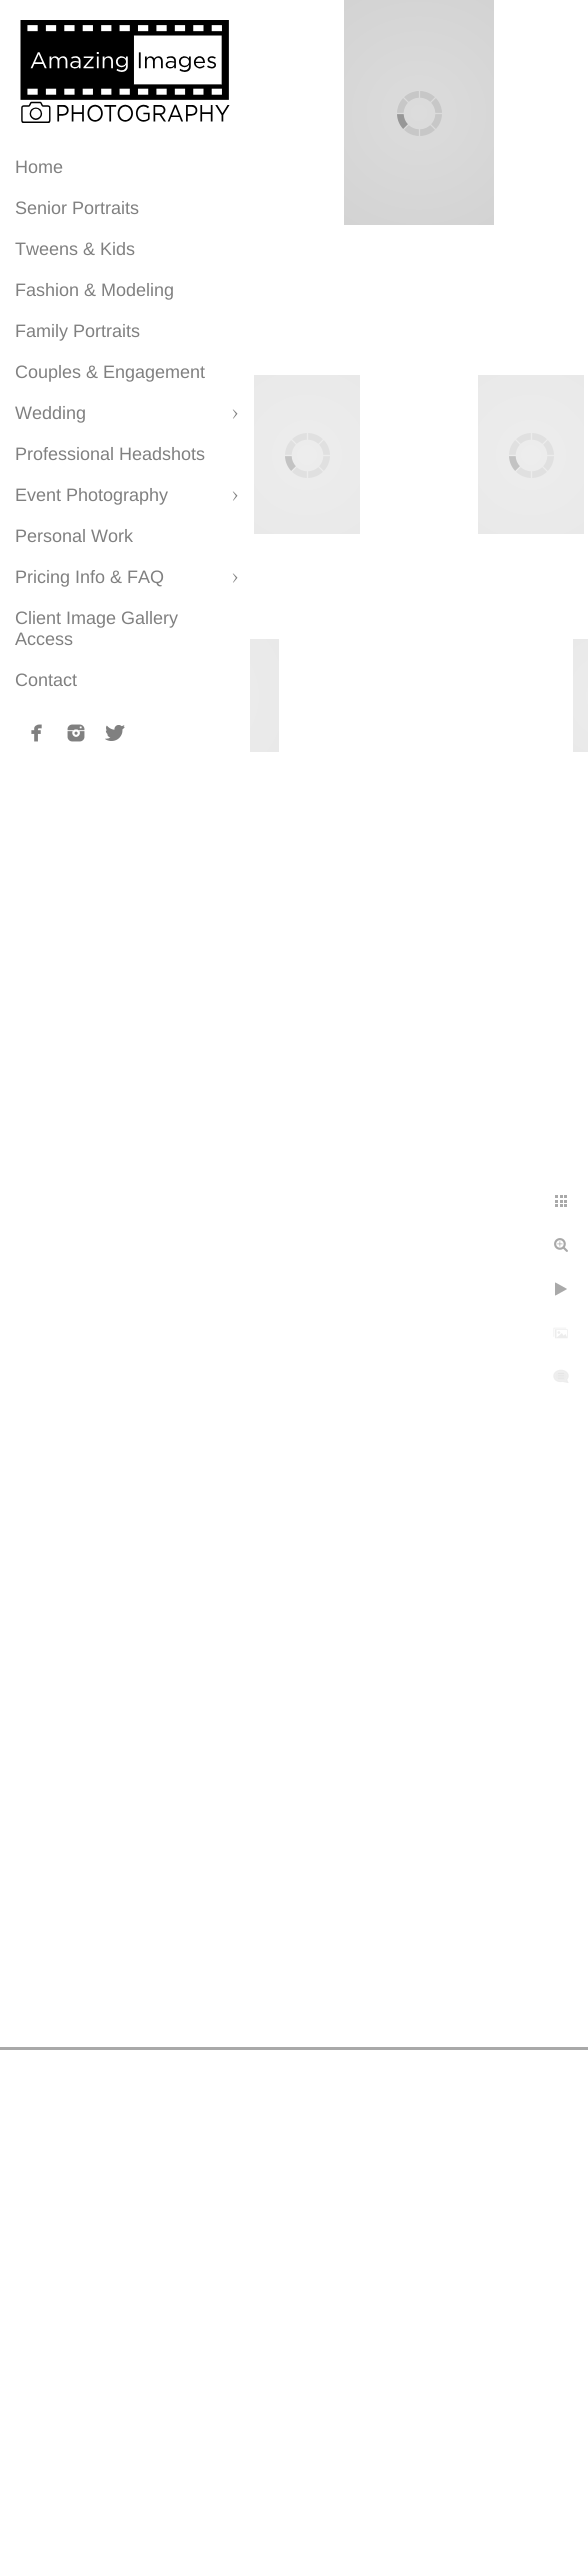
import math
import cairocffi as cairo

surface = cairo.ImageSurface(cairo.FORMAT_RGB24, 588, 2558)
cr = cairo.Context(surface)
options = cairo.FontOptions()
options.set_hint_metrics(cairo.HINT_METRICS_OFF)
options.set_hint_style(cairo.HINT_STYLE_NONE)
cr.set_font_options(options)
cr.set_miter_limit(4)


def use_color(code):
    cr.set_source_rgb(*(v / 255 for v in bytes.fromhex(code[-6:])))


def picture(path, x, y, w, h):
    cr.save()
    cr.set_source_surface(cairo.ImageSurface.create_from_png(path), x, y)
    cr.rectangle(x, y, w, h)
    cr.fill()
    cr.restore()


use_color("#ffffff")
cr.paint()
picture("img1.png", 20, 20, 210, 103)
cr.select_font_face("Liberation Sans")
cr.set_font_size(18)
use_color("#808080")
cr.move_to(15, 173)
cr.show_text("Home")
cr.move_to(15, 214)
cr.show_text("Senior Portraits")
cr.move_to(15, 255)
cr.show_text("Tweens & Kids")
cr.move_to(15, 296)
cr.show_text("Fashion & Modeling")
cr.move_to(15, 337)
cr.show_text("Family Portraits")
cr.move_to(15, 378)
cr.show_text("Couples & Engagement")
cr.move_to(15, 419)
cr.show_text("Wedding")
picture("img2.png", 232, 409, 6, 10)
cr.move_to(15, 460)
cr.show_text("Professional Headshots")
cr.move_to(15, 501)
cr.show_text("Event Photography")
picture("img2.png", 232, 491, 6, 10)
cr.move_to(15, 542)
cr.show_text("Personal Work")
cr.move_to(15, 583)
cr.show_text("Pricing Info & FAQ")
picture("img2.png", 232, 573, 6, 10)
cr.move_to(15, 624)
cr.show_text("Client Image Gallery")
cr.move_to(15, 645)
cr.show_text("Access")
cr.move_to(15, 686)
cr.show_text("Contact")
picture("img3.png", 31, 724, 11, 18)
picture("img4.png", 67, 724, 18, 18)
picture("img5.png", 105, 725, 20, 16)
gradient = cairo.RadialGradient(419, 113, 0, 419, 113, 135)
gradient.add_color_stop_rgba(0, 0.863, 0.863, 0.863, 1)
gradient.add_color_stop_rgba(1, 0.827, 0.827, 0.827, 1)
cr.set_source(gradient)
cr.rectangle(344, 0, 150, 225)
cr.fill()
picture("img6.png", 397, 91, 45, 45)
gradient = cairo.RadialGradient(307, 455, 0, 307, 455, 96)
gradient.add_color_stop_rgba(0, 0.929, 0.929, 0.929, 1)
gradient.add_color_stop_rgba(1, 0.914, 0.914, 0.914, 1)
cr.set_source(gradient)
cr.rectangle(254, 375, 106, 159)
cr.fill()
picture("img7.png", 285, 433, 45, 45)
gradient = cairo.RadialGradient(531, 455, 0, 531, 455, 96)
gradient.add_color_stop_rgba(0, 0.929, 0.929, 0.929, 1)
gradient.add_color_stop_rgba(1, 0.914, 0.914, 0.914, 1)
cr.set_source(gradient)
cr.rectangle(478, 375, 106, 159)
cr.fill()
picture("img7.png", 509, 433, 45, 45)
gradient = cairo.RadialGradient(195, 696, 0, 195, 696, 102)
gradient.add_color_stop_rgba(0, 0.929, 0.929, 0.929, 1)
gradient.add_color_stop_rgba(1, 0.914, 0.914, 0.914, 1)
cr.set_source(gradient)
cr.rectangle(250, 639, 29, 113)
cr.fill()
gradient = cairo.RadialGradient(611, 696, 0, 611, 696, 68)
gradient.add_color_stop_rgba(0, 0.929, 0.929, 0.929, 1)
gradient.add_color_stop_rgba(1, 0.914, 0.914, 0.914, 1)
cr.set_source(gradient)
cr.rectangle(573, 639, 15, 113)
cr.fill()
picture("img8.png", 555, 1195, 12, 12)
picture("img9.png", 554, 1238, 14, 14)
picture("img10.png", 555, 1282, 12, 14)
picture("img11.png", 553, 1327, 15, 12)
picture("img12.png", 553, 1369, 16, 14)
use_color("#a9a9a9")
cr.rectangle(0, 2047, 588, 3)
cr.fill()
surface.write_to_png("result.png")
